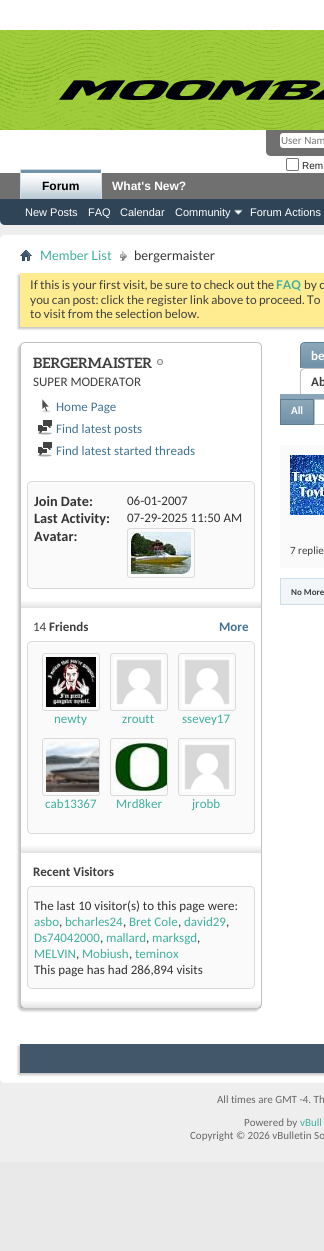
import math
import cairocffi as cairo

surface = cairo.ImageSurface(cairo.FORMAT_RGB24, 324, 1251)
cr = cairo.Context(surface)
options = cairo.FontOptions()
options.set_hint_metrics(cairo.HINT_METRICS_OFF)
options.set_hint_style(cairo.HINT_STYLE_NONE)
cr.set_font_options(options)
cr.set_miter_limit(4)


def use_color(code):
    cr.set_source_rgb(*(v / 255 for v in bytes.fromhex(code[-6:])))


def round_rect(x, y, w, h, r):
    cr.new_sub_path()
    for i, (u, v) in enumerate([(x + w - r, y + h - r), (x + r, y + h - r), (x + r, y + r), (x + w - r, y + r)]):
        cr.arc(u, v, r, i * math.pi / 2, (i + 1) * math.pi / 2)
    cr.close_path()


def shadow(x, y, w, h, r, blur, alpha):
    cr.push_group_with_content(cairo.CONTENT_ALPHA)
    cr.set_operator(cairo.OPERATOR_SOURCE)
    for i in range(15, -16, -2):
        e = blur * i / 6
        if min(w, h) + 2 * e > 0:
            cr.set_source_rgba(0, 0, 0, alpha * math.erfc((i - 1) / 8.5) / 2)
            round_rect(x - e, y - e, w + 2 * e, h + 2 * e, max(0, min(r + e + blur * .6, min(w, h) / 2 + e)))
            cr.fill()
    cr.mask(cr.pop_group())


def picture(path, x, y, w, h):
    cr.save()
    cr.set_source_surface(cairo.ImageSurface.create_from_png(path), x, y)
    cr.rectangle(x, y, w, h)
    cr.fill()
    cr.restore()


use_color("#e9e9e9")
cr.paint()
use_color("#eeeeee")
cr.rectangle(0, 220, 324, 942)
cr.fill()
use_color("#ffffff")
cr.rectangle(0, 0, 324, 30)
cr.fill()
picture("img1.png", 0, 30, 324, 100)
picture("img2.png", 59, 80, 265, 20)
cr.new_path()
cr.move_to(0, 130)
cr.line_to(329, 130)
cr.line_to(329, 220)
cr.curve_to(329, 223, 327, 225, 324, 225)
cr.line_to(5, 225)
cr.curve_to(2, 225, 0, 223, 0, 220)
cr.close_path()
cr.fill()
use_color("#707070")
cr.new_path()
cr.move_to(266, 130)
cr.line_to(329, 130)
cr.line_to(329, 151)
cr.curve_to(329, 154, 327, 156, 324, 156)
cr.line_to(271, 156)
cr.curve_to(268, 156, 266, 154, 266, 151)
cr.close_path()
cr.fill()
use_color("#ffffff")
round_rect(280, 133, 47, 15, 3)
cr.fill()
cr.select_font_face("Carlito")
cr.set_font_size(11)
use_color("#777777")
cr.move_to(281, 144)
cr.show_text("User Nam")
round_rect(286.5, 158.5, 12, 12, 1.5)
use_color("#767676")
cr.set_line_width(1)
cr.stroke()
cr.select_font_face("Liberation Sans")
cr.set_font_size(10)
use_color("#222222")
cr.move_to(302, 169)
cr.show_text("Rem")
use_color("#2f4456")
cr.new_path()
cr.move_to(0, 173)
cr.line_to(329, 173)
cr.line_to(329, 220)
cr.curve_to(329, 223, 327, 225, 324, 225)
cr.line_to(5, 225)
cr.curve_to(2, 225, 0, 223, 0, 220)
cr.close_path()
cr.fill()
use_color("#707070")
cr.rectangle(0, 173, 324, 26)
cr.fill()
use_color("#7192a8")
cr.rectangle(21, 169, 80, 30)
cr.fill()
picture("img3.png", 21, 169, 80, 30)
use_color("#cedfeb")
cr.rectangle(20, 169, 1, 30)
cr.fill()
cr.select_font_face("Liberation Sans", cairo.FONT_SLANT_NORMAL, cairo.FONT_WEIGHT_BOLD)
cr.set_font_size(12)
use_color("#000000")
cr.move_to(42, 190)
cr.show_text("Forum")
use_color("#cedfeb")
cr.rectangle(101, 173, 1, 26)
cr.fill()
use_color("#ffffff")
cr.move_to(112, 190)
cr.show_text("What's New?")
cr.select_font_face("Liberation Sans")
cr.set_font_size(11)
cr.move_to(25, 216)
cr.show_text("New Posts")
cr.move_to(88, 216)
cr.show_text("FAQ")
cr.move_to(120, 216)
cr.show_text("Calendar")
cr.move_to(175, 216)
cr.show_text("Community")
picture("img4.png", 234, 209, 9, 6)
cr.move_to(250, 216)
cr.show_text("Forum Actions")
round_rect(0, 235, 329, 848, 5)
cr.fill()
picture("img5.png", 20, 250, 12, 11)
picture("img6.png", 120, 251, 7, 10)
cr.select_font_face("Lato")
cr.set_font_size(13)
use_color("#40af9e")
cr.move_to(40, 260)
cr.show_text("Member List")
use_color("#333333")
cr.move_to(134, 260)
cr.show_text("bergermaister")
use_color("#c8c8c8")
shadow(18, 275, 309, 54, 0, 1, 1)
use_color("#ffeb90")
cr.rectangle(20, 273, 304, 54)
cr.fill()
cr.set_font_size(12)
use_color("#3e3e3e")
cr.move_to(30, 289)
cr.show_text("If this is your first visit, be sure to check out the")
cr.select_font_face("Lato", cairo.FONT_SLANT_NORMAL, cairo.FONT_WEIGHT_BOLD)
use_color("#40af9e")
cr.move_to(276, 289)
cr.show_text("FAQ")
cr.select_font_face("Lato")
use_color("#3e3e3e")
cr.move_to(304, 289)
cr.show_text("by c")
cr.move_to(30, 304)
cr.show_text("you can post: click the register link above to proceed. To")
cr.move_to(30, 318)
cr.show_text("to visit from the selection below.")
use_color("#c8c8c8")
shadow(18, 344, 242, 667, 5, 1, 1)
use_color("#ffffff")
round_rect(20.5, 342.5, 241, 666, 4.5)
cr.fill_preserve()
use_color("#c1c1c1")
cr.stroke()
cr.select_font_face("Aleo", cairo.FONT_SLANT_NORMAL, cairo.FONT_WEIGHT_BOLD)
cr.set_font_size(14.25)
use_color("#3e3e3e")
cr.move_to(33, 368)
cr.show_text("BERGERMAISTER")
picture("img7.png", 157, 359, 6, 6)
cr.select_font_face("Carlito")
cr.set_font_size(13)
cr.move_to(33, 386)
cr.show_text("SUPER MODERATOR")
picture("img8.png", 42, 399, 9, 14)
use_color("#417394")
cr.move_to(56, 411)
cr.show_text("Home Page")
picture("img9.png", 37, 420, 15, 15)
cr.move_to(56, 433)
cr.show_text("Find latest posts")
picture("img9.png", 37, 442, 15, 15)
cr.move_to(56, 455)
cr.show_text("Find latest started threads")
round_rect(27.5, 481.5, 227, 107, 4.5)
use_color("#dadada")
cr.stroke()
use_color("#fafafa")
round_rect(28, 482, 226, 106, 5)
cr.fill()
cr.rectangle(251, 482, 1, 1)
cr.fill()
cr.select_font_face("Carlito", cairo.FONT_SLANT_NORMAL, cairo.FONT_WEIGHT_BOLD)
cr.set_font_size(14.25)
use_color("#333333")
cr.move_to(34, 506)
cr.show_text("Join Date:")
cr.select_font_face("Carlito")
cr.set_font_size(13)
cr.move_to(127, 505)
cr.show_text("06-01-2007")
cr.select_font_face("Carlito", cairo.FONT_SLANT_NORMAL, cairo.FONT_WEIGHT_BOLD)
cr.set_font_size(14.25)
cr.move_to(34, 523)
cr.show_text("Last Activity:")
cr.select_font_face("Carlito")
cr.set_font_size(13)
cr.move_to(127, 522)
cr.show_text("07-29-2025 11:50 AM")
cr.select_font_face("Carlito", cairo.FONT_SLANT_NORMAL, cairo.FONT_WEIGHT_BOLD)
cr.set_font_size(14.25)
cr.move_to(34, 541)
cr.show_text("Avatar:")
round_rect(127.5, 528.5, 67, 49, 2.5)
use_color("#dadada")
cr.stroke()
picture("img10.png", 131, 532, 60, 42)
picture("img11.png", 21, 601, 240, 7)
cr.select_font_face("Carlito")
cr.set_font_size(13)
use_color("#3e3e3e")
cr.move_to(33, 631)
cr.show_text("14")
cr.select_font_face("Carlito", cairo.FONT_SLANT_NORMAL, cairo.FONT_WEIGHT_BOLD)
cr.move_to(49, 631)
cr.show_text("Friends")
use_color("#417394")
cr.move_to(219, 631)
cr.show_text("More")
round_rect(27.5, 641.5, 227, 192, 4.5)
use_color("#dadada")
cr.stroke()
use_color("#fafafa")
round_rect(28, 642, 226, 191, 5)
cr.fill()
cr.rectangle(251, 642, 1, 1)
cr.fill()
round_rect(42.5, 653.5, 57, 57, 2.5)
use_color("#dadada")
cr.stroke()
picture("img12.png", 46, 657, 50, 50)
cr.select_font_face("Carlito")
use_color("#40af9e")
cr.move_to(54, 723)
cr.show_text("newty")
round_rect(110.5, 653.5, 57, 57, 2.5)
use_color("#dadada")
cr.stroke()
picture("img13.png", 114, 657, 50, 50)
use_color("#40af9e")
cr.move_to(122, 723)
cr.show_text("zroutt")
round_rect(178.5, 653.5, 57, 57, 2.5)
use_color("#dadada")
cr.stroke()
picture("img13.png", 182, 657, 50, 50)
use_color("#40af9e")
cr.move_to(182, 723)
cr.show_text("ssevey17")
round_rect(42.5, 738.5, 57, 57, 2.5)
use_color("#dadada")
cr.stroke()
picture("img14.png", 46, 742, 53, 50)
use_color("#40af9e")
cr.move_to(45, 808)
cr.show_text("cab13367")
round_rect(110.5, 738.5, 57, 57, 2.5)
use_color("#dadada")
cr.stroke()
picture("img15.png", 114, 742, 53, 50)
use_color("#40af9e")
cr.move_to(116, 808)
cr.show_text("Mrd8ker")
round_rect(178.5, 738.5, 57, 57, 2.5)
use_color("#dadada")
cr.stroke()
picture("img13.png", 182, 742, 50, 50)
use_color("#40af9e")
cr.move_to(192, 808)
cr.show_text("jrobb")
picture("img11.png", 21, 846, 240, 7)
cr.select_font_face("Carlito", cairo.FONT_SLANT_NORMAL, cairo.FONT_WEIGHT_BOLD)
use_color("#3e3e3e")
cr.move_to(33, 876)
cr.show_text("Recent Visitors")
round_rect(27.5, 886.5, 227, 102, 4.5)
use_color("#dadada")
cr.stroke()
use_color("#fafafa")
round_rect(28, 887, 226, 101, 5)
cr.fill()
cr.rectangle(251, 887, 1, 1)
cr.fill()
cr.select_font_face("Carlito")
use_color("#333333")
cr.move_to(34, 910)
cr.show_text("The last 10 visitor(s) to this page were:")
use_color("#40af9e")
cr.move_to(34, 926)
cr.show_text("asbo")
use_color("#333333")
cr.move_to(59, 926)
cr.show_text(",")
use_color("#40af9e")
cr.move_to(65, 926)
cr.show_text("bcharles24")
use_color("#333333")
cr.move_to(123, 926)
cr.show_text(",")
use_color("#40af9e")
cr.move_to(129, 926)
cr.show_text("Bret Cole")
use_color("#333333")
cr.move_to(178, 926)
cr.show_text(",")
use_color("#40af9e")
cr.move_to(184, 926)
cr.show_text("david29")
use_color("#333333")
cr.move_to(226, 926)
cr.show_text(",")
use_color("#40af9e")
cr.move_to(34, 942)
cr.show_text("Ds74042000")
use_color("#333333")
cr.move_to(100, 942)
cr.show_text(",")
use_color("#40af9e")
cr.move_to(106, 942)
cr.show_text("mallard")
use_color("#333333")
cr.move_to(146, 942)
cr.show_text(",")
use_color("#40af9e")
cr.move_to(152, 942)
cr.show_text("marksgd")
use_color("#333333")
cr.move_to(197, 942)
cr.show_text(",")
use_color("#40af9e")
cr.move_to(34, 958)
cr.show_text("MELVIN")
use_color("#333333")
cr.move_to(76, 958)
cr.show_text(",")
use_color("#40af9e")
cr.move_to(82, 958)
cr.show_text("Mobiush")
use_color("#333333")
cr.move_to(129, 958)
cr.show_text(",")
use_color("#40af9e")
cr.move_to(135, 958)
cr.show_text("teminox")
use_color("#333333")
cr.move_to(34, 974)
cr.show_text("This page has had 286,894 visits")
picture("img16.png", 21, 1001, 240, 7)
use_color("#7192a8")
cr.new_path()
cr.move_to(305, 343)
cr.line_to(324, 343)
cr.curve_to(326, 343, 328, 345, 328, 347)
cr.line_to(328, 368)
cr.line_to(301, 368)
cr.line_to(301, 347)
cr.curve_to(301, 345, 303, 343, 305, 343)
cr.close_path()
cr.fill()
picture("img17.png", 301, 343, 23, 20)
use_color("#5a7f97")
cr.set_fill_rule(cairo.FILL_RULE_EVEN_ODD)
cr.new_path()
cr.move_to(305, 342)
cr.line_to(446, 342)
cr.curve_to(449, 342, 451, 344, 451, 347)
cr.line_to(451, 368)
cr.line_to(300, 368)
cr.line_to(300, 347)
cr.curve_to(300, 344, 302, 342, 305, 342)
cr.close_path()
cr.move_to(305, 343)
cr.line_to(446, 343)
cr.curve_to(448, 343, 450, 345, 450, 347)
cr.line_to(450, 368)
cr.line_to(301, 368)
cr.line_to(301, 347)
cr.curve_to(301, 345, 303, 343, 305, 343)
cr.close_path()
cr.fill()
cr.select_font_face("Carlito", cairo.FONT_SLANT_NORMAL, cairo.FONT_WEIGHT_BOLD)
use_color("#ffffff")
cr.move_to(311, 360)
cr.show_text("be")
use_color("#c1c1c1")
cr.new_path()
cr.move_to(305, 368)
cr.line_to(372, 368)
cr.curve_to(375, 368, 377, 370, 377, 373)
cr.line_to(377, 394)
cr.line_to(300, 394)
cr.line_to(300, 373)
cr.curve_to(300, 370, 302, 368, 305, 368)
cr.close_path()
cr.move_to(305, 369)
cr.line_to(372, 369)
cr.curve_to(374, 369, 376, 371, 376, 373)
cr.line_to(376, 394)
cr.line_to(301, 394)
cr.line_to(301, 373)
cr.curve_to(301, 371, 303, 369, 305, 369)
cr.close_path()
cr.fill()
use_color("#3e3e3e")
cr.move_to(311, 386)
cr.show_text("Ab")
use_color("#7192a8")
cr.rectangle(280, 394, 44, 5)
cr.fill()
picture("img18.png", 280, 394, 44, 5)
cr.rectangle(281, 400, 32, 24)
cr.fill()
picture("img19.png", 281, 400, 32, 20)
cr.rectangle(280.5, 399.5, 33, 25)
use_color("#5a7f97")
cr.stroke()
cr.set_font_size(11)
use_color("#ffffff")
cr.move_to(291, 414)
cr.show_text("All")
cr.rectangle(314.5, 399.5, 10, 25)
use_color("#c1c1c1")
cr.stroke()
use_color("#fafafa")
cr.rectangle(280, 445, 44, 123)
cr.fill()
picture("img20.png", 290, 455, 34, 60)
cr.select_font_face("Carlito")
use_color("#3e3e3e")
cr.move_to(290, 554)
cr.show_text("7 replie")
use_color("#f2f6f8")
cr.rectangle(280.5, 578.5, 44, 26)
cr.fill_preserve()
use_color("#cedfeb")
cr.stroke()
cr.select_font_face("Carlito", cairo.FONT_SLANT_NORMAL, cairo.FONT_WEIGHT_BOLD)
cr.set_font_size(9)
use_color("#3e3e3e")
cr.move_to(291, 595)
cr.show_text("No More")
use_color("#c8c8c8")
shadow(18, 1046, 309, 29, 0, 1, 1)
use_color("#425769")
cr.rectangle(20, 1044, 304, 29)
cr.fill()
cr.select_font_face("Carlito")
cr.set_font_size(11)
use_color("#666666")
cr.move_to(217, 1103)
cr.show_text("All times are GMT -4. Th")
cr.move_to(244, 1126)
cr.show_text("Powered by")
use_color("#40af9e")
cr.move_to(300, 1126)
cr.show_text("vBull")
use_color("#666666")
cr.move_to(190, 1139)
cr.show_text("Copyright © 2026 vBulletin So")
surface.write_to_png("result.png")
